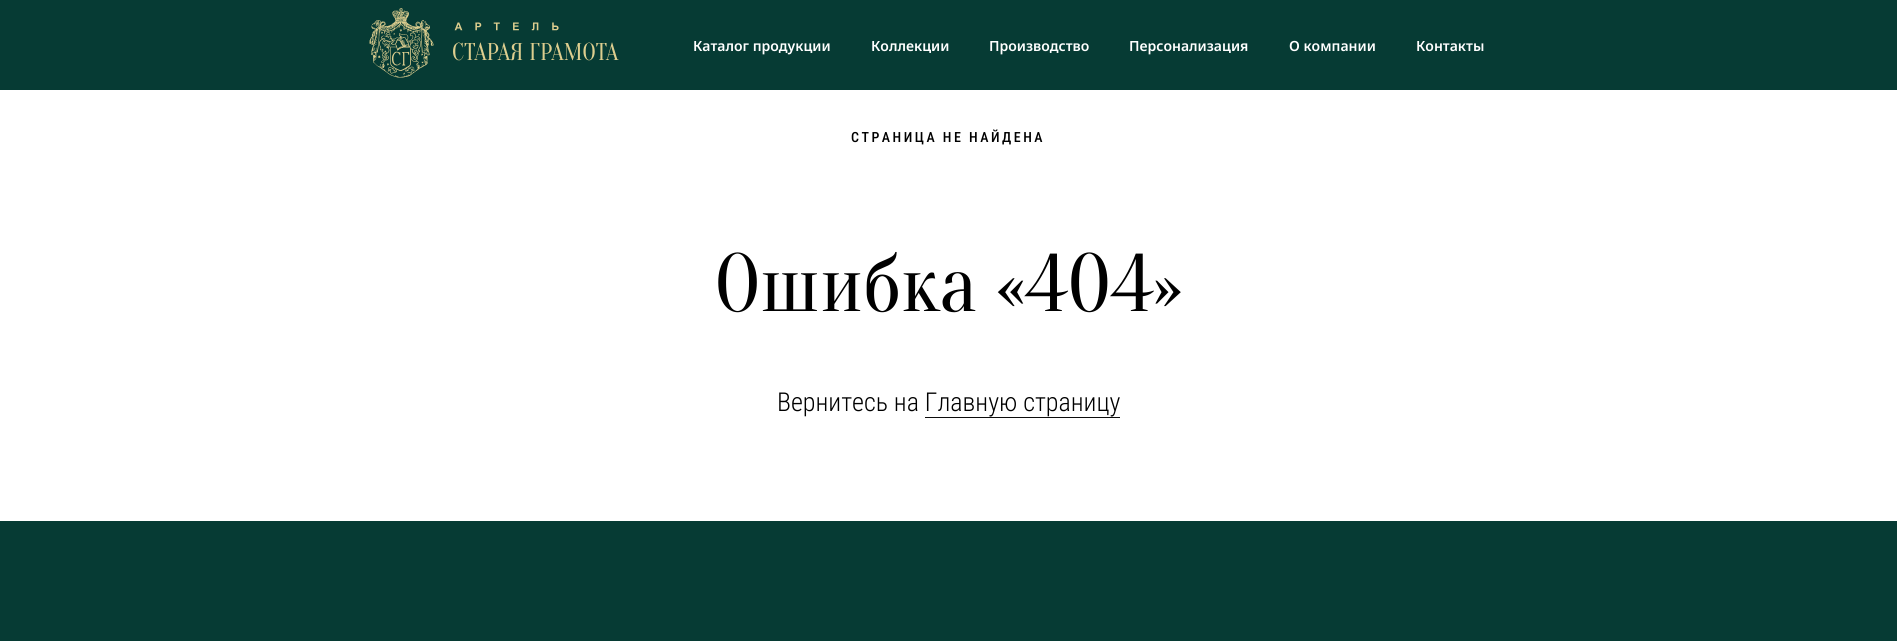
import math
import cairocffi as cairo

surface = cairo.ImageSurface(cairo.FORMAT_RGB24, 1897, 641)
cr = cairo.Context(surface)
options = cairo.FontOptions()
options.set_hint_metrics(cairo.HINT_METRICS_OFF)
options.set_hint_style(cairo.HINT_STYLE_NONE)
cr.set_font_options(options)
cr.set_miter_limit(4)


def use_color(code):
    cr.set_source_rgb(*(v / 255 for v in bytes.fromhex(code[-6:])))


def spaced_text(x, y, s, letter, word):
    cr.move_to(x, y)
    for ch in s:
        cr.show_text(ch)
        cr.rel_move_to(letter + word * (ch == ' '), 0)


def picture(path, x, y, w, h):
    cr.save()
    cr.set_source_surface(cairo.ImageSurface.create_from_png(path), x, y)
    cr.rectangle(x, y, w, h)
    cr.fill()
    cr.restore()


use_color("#ffffff")
cr.paint()
use_color("#063b34")
cr.rectangle(0, 0, 1897, 90)
cr.fill()
picture("img1.png", 369, 8, 250, 70)
cr.select_font_face("Noto Sans SemiBold")
cr.set_font_size(14)
use_color("#ffffff")
cr.move_to(693, 51)
cr.show_text("Каталог продукции")
cr.move_to(871, 51)
cr.show_text("Коллекции")
cr.move_to(989, 51)
cr.show_text("Производство")
cr.move_to(1129, 51)
cr.show_text("Персонализация")
cr.move_to(1289, 51)
cr.show_text("О компании")
cr.move_to(1416, 51)
cr.show_text("Контакты")
cr.select_font_face("Roboto Condensed Medium")
use_color("#000000")
spaced_text(851, 142, "СТРАНИЦА НЕ НАЙДЕНА", 2.5, 0)
cr.select_font_face("Oranienbaum")
cr.set_font_size(82)
cr.move_to(715, 311)
cr.show_text("Ошибка «404»")
cr.select_font_face("Roboto Condensed Light")
cr.set_font_size(26)
cr.move_to(777, 411)
cr.show_text("Вернитесь на Главную страницу")
use_color("#0c0c0c")
cr.rectangle(925, 417, 195, 1)
cr.fill()
use_color("#063b34")
cr.rectangle(0, 521, 1897, 120)
cr.fill()
surface.write_to_png("result.png")
